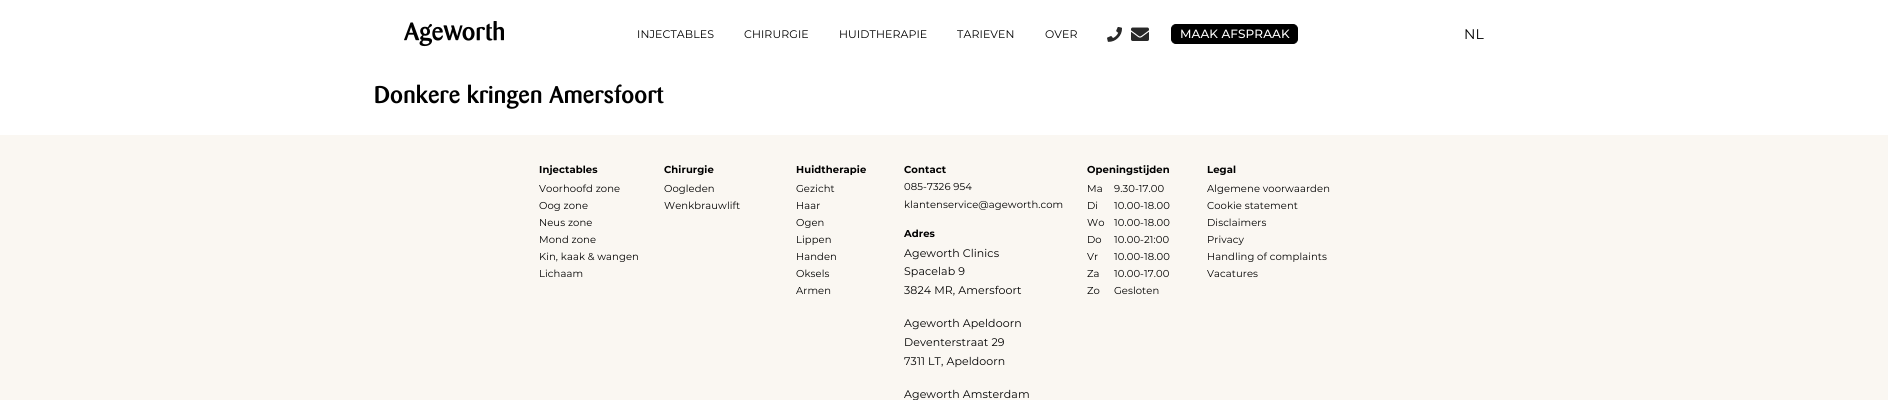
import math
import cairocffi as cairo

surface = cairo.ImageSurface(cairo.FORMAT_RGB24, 1888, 400)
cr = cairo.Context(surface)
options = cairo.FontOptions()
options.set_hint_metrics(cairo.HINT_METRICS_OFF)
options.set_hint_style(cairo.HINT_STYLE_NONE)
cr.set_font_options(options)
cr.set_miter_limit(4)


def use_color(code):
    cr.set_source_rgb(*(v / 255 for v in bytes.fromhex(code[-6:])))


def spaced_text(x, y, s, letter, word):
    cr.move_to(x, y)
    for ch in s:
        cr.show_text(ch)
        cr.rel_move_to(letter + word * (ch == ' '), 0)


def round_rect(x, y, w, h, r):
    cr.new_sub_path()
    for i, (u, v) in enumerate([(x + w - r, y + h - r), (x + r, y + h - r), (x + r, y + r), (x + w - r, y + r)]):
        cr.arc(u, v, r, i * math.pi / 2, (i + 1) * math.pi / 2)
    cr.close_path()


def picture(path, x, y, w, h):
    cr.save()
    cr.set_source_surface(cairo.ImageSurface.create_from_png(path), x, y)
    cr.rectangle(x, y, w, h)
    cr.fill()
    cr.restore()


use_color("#ffffff")
cr.paint()
picture("img1.png", 404, 21, 100, 26)
cr.select_font_face("Montserrat")
cr.set_font_size(11)
use_color("#000000")
spaced_text(637, 38, "INJECTABLES", 0.1, 0)
spaced_text(744, 38, "CHIRURGIE", 0.1, 0)
spaced_text(839, 38, "HUIDTHERAPIE", 0.1, 0)
spaced_text(957, 38, "TARIEVEN", 0.1, 0)
spaced_text(1045, 38, "OVER", 0.1, 0)
picture("img2.png", 1107, 27, 15, 15)
picture("img3.png", 1131, 27, 18, 14)
round_rect(1171.5, 24.5, 126, 19, 4.5)
cr.fill_preserve()
cr.set_line_width(1)
cr.stroke()
cr.select_font_face("Montserrat Medium")
cr.set_font_size(12)
use_color("#ffffff")
spaced_text(1180, 38, "MAAK AFSPRAAK", 0.1, 0)
cr.select_font_face("Montserrat")
cr.set_font_size(14)
use_color("#000000")
spaced_text(1464, 39, "NL", 0.1, 0)
cr.select_font_face("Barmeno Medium")
cr.set_font_size(24)
spaced_text(374, 103, "Donkere kringen Amersfoort", 0.1, 0)
use_color("#faf7f2")
cr.rectangle(0, 135, 1888, 265)
cr.fill()
cr.select_font_face("Montserrat", cairo.FONT_SLANT_NORMAL, cairo.FONT_WEIGHT_BOLD)
cr.set_font_size(10)
use_color("#000000")
spaced_text(539, 173, "Injectables", 0.1, 0)
cr.select_font_face("Montserrat")
spaced_text(539, 192, "Voorhoofd zone", 0.1, 0)
spaced_text(539, 209, "Oog zone", 0.1, 0)
spaced_text(539, 226, "Neus zone", 0.1, 0)
spaced_text(539, 243, "Mond zone", 0.1, 0)
spaced_text(539, 260, "Kin, kaak & wangen", 0.1, 0)
spaced_text(539, 277, "Lichaam", 0.1, 0)
cr.select_font_face("Montserrat", cairo.FONT_SLANT_NORMAL, cairo.FONT_WEIGHT_BOLD)
spaced_text(664, 173, "Chirurgie", 0.1, 0)
cr.select_font_face("Montserrat")
spaced_text(664, 192, "Oogleden", 0.1, 0)
spaced_text(664, 209, "Wenkbrauwlift", 0.1, 0)
cr.select_font_face("Montserrat", cairo.FONT_SLANT_NORMAL, cairo.FONT_WEIGHT_BOLD)
spaced_text(796, 173, "Huidtherapie", 0.1, 0)
cr.select_font_face("Montserrat")
spaced_text(796, 192, "Gezicht", 0.1, 0)
spaced_text(796, 209, "Haar", 0.1, 0)
spaced_text(796, 226, "Ogen", 0.1, 0)
spaced_text(796, 243, "Lippen", 0.1, 0)
spaced_text(796, 260, "Handen", 0.1, 0)
spaced_text(796, 277, "Oksels", 0.1, 0)
spaced_text(796, 294, "Armen", 0.1, 0)
cr.select_font_face("Montserrat", cairo.FONT_SLANT_NORMAL, cairo.FONT_WEIGHT_BOLD)
spaced_text(904, 173, "Contact", 0.1, 0)
cr.select_font_face("Montserrat")
spaced_text(904, 190, "085-7326 954", 0.1, 0)
spaced_text(904, 208, "klantenservice@ageworth.com", 0.1, 0)
cr.select_font_face("Montserrat", cairo.FONT_SLANT_NORMAL, cairo.FONT_WEIGHT_BOLD)
spaced_text(904, 237, "Adres", 0.1, 0)
cr.select_font_face("Montserrat")
cr.set_font_size(11)
spaced_text(904, 257, "Ageworth Clinics", 0.1, 0)
spaced_text(904, 275, "Spacelab 9", 0.1, 0)
spaced_text(904, 294, "3824 MR, Amersfoort", 0.1, 0)
spaced_text(904, 327, "Ageworth Apeldoorn", 0.1, 0)
spaced_text(904, 346, "Deventerstraat 29", 0.1, 0)
spaced_text(904, 365, "7311 LT, Apeldoorn", 0.1, 0)
spaced_text(904, 398, "Ageworth Amsterdam", 0.1, 0)
cr.select_font_face("Montserrat", cairo.FONT_SLANT_NORMAL, cairo.FONT_WEIGHT_BOLD)
cr.set_font_size(10)
spaced_text(1087, 173, "Openingstijden", 0.1, 0)
cr.select_font_face("Montserrat")
spaced_text(1087, 192, "Ma", 0.1, 0)
spaced_text(1114, 192, "9.30-17.00", 0.1, 0)
spaced_text(1087, 209, "Di", 0.1, 0)
spaced_text(1114, 209, "10.00-18.00", 0.1, 0)
spaced_text(1087, 226, "Wo", 0.1, 0)
spaced_text(1114, 226, "10.00-18.00", 0.1, 0)
spaced_text(1087, 243, "Do", 0.1, 0)
spaced_text(1114, 243, "10.00-21:00", 0.1, 0)
spaced_text(1087, 260, "Vr", 0.1, 0)
spaced_text(1114, 260, "10.00-18.00", 0.1, 0)
spaced_text(1087, 277, "Za", 0.1, 0)
spaced_text(1114, 277, "10.00-17.00", 0.1, 0)
spaced_text(1087, 294, "Zo", 0.1, 0)
spaced_text(1114, 294, "Gesloten", 0.1, 0)
cr.select_font_face("Montserrat", cairo.FONT_SLANT_NORMAL, cairo.FONT_WEIGHT_BOLD)
spaced_text(1207, 173, "Legal", 0.1, 0)
cr.select_font_face("Montserrat")
spaced_text(1207, 192, "Algemene voorwaarden", 0.1, 0)
spaced_text(1207, 209, "Cookie statement", 0.1, 0)
spaced_text(1207, 226, "Disclaimers", 0.1, 0)
spaced_text(1207, 243, "Privacy", 0.1, 0)
spaced_text(1207, 260, "Handling of complaints", 0.1, 0)
spaced_text(1207, 277, "Vacatures", 0.1, 0)
surface.write_to_png("result.png")
